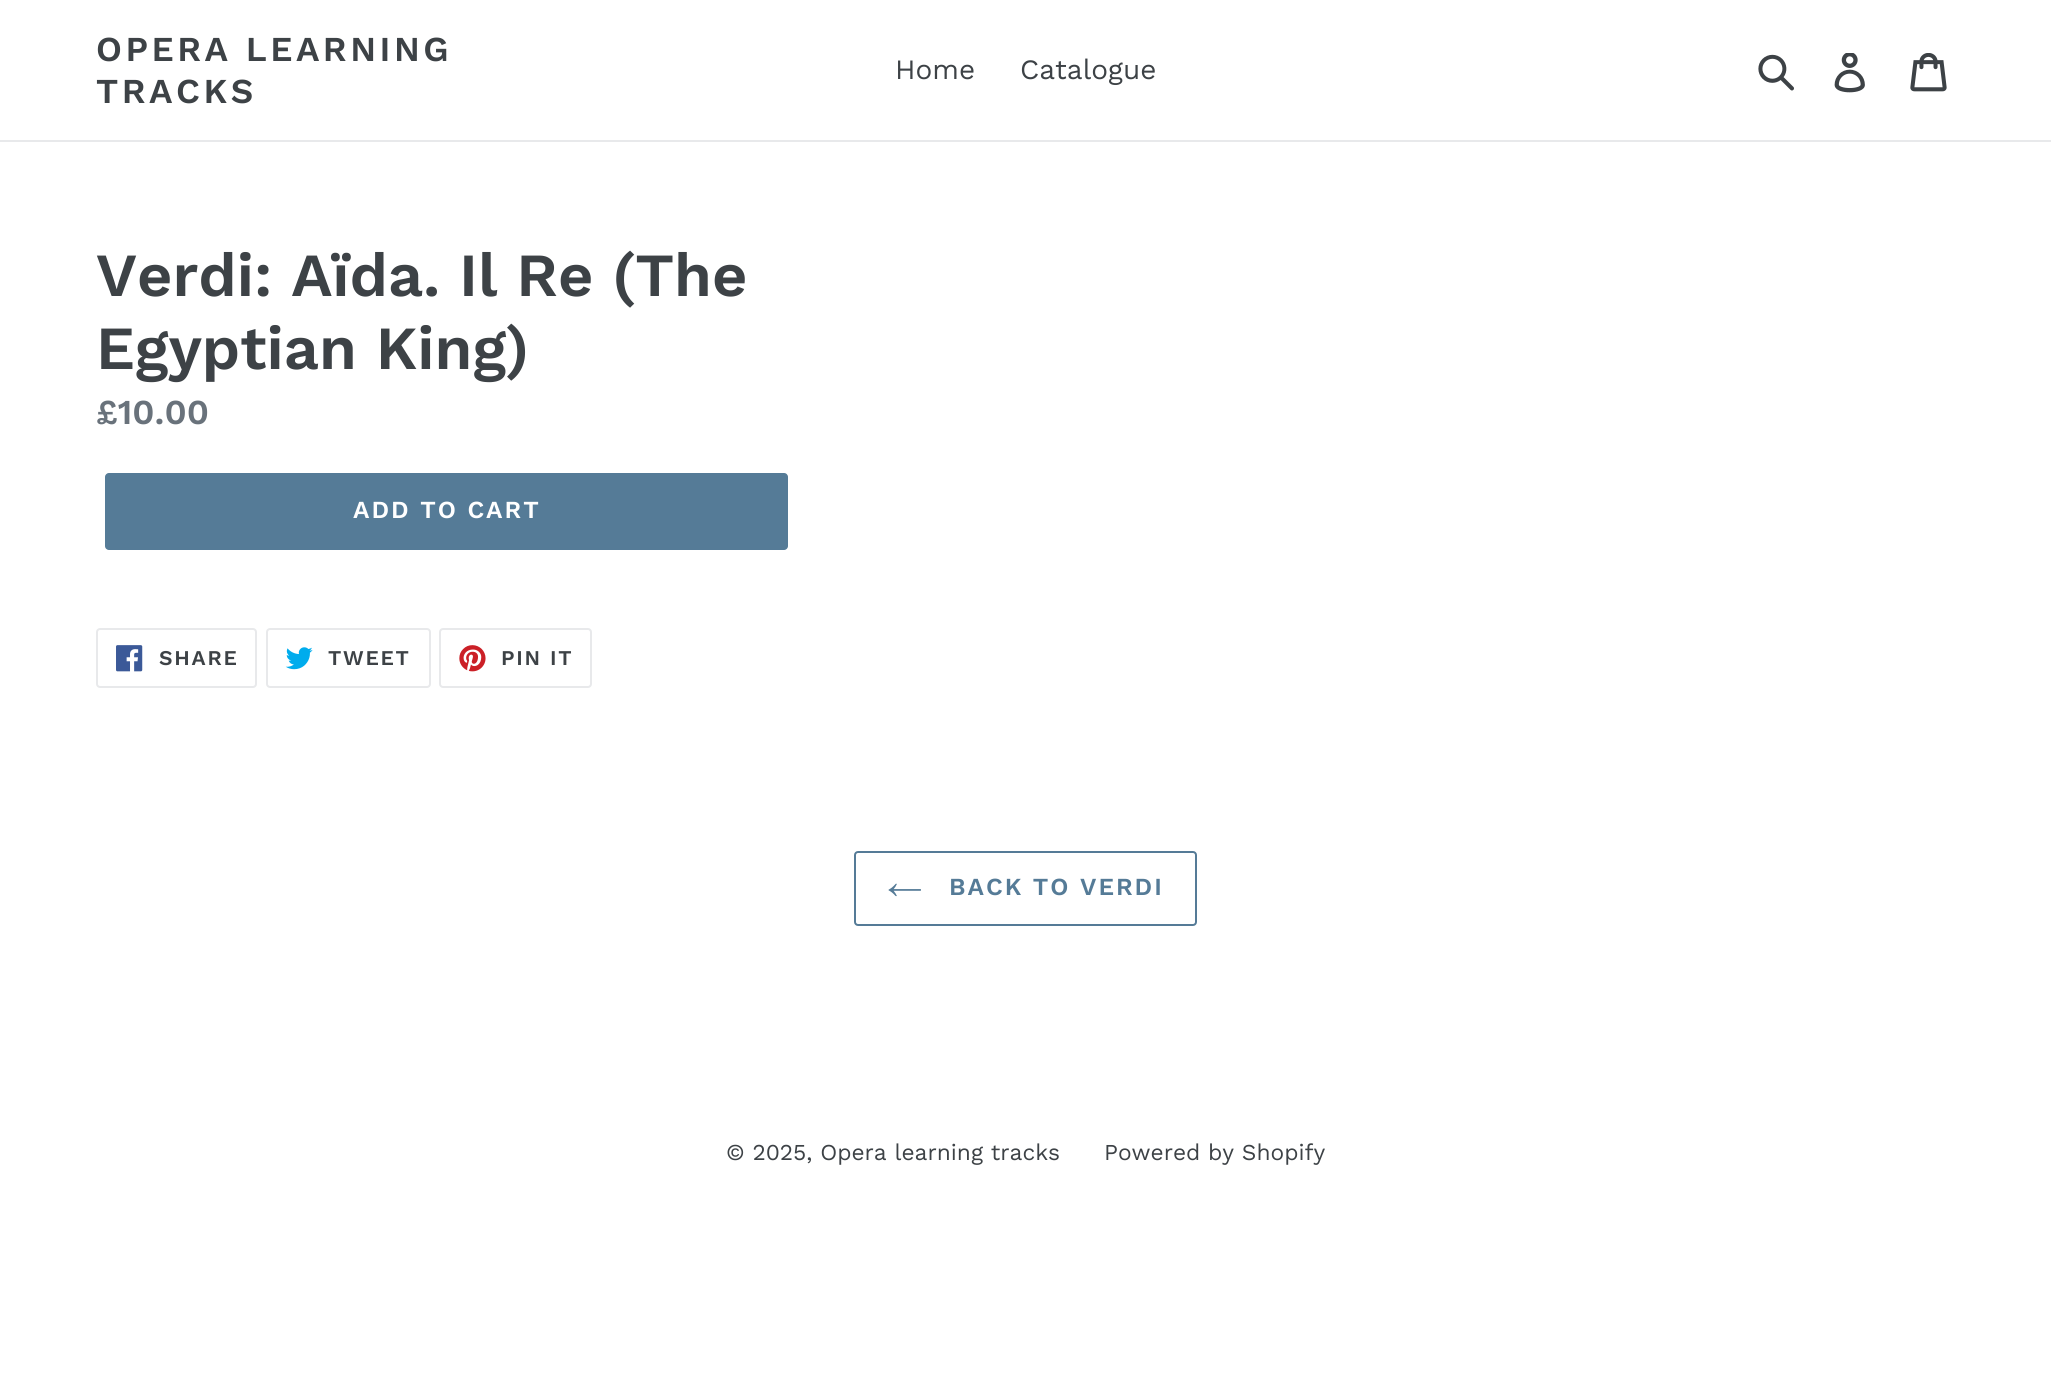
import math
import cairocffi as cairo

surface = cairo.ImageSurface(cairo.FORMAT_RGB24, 2051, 1384)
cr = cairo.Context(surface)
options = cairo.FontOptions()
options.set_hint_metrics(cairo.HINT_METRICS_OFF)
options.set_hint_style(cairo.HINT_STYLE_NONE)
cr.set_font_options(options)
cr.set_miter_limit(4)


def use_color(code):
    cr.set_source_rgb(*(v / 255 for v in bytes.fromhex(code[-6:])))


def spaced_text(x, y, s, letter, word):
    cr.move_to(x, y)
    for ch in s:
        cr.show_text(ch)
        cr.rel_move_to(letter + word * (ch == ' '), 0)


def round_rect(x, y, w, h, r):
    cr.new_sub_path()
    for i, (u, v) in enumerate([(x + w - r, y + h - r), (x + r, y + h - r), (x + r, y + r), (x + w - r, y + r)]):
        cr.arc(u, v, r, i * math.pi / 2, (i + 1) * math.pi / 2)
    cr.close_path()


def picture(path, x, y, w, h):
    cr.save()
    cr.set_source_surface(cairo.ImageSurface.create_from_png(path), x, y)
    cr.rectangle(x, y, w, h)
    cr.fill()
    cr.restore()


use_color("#ffffff")
cr.paint()
use_color("#e8e9eb")
cr.rectangle(0, 140, 2051, 2)
cr.fill()
cr.select_font_face("Work Sans SemiBold")
cr.set_font_size(35)
use_color("#3d4246")
spaced_text(96, 61, "OPERA LEARNING", 3.5, 0)
spaced_text(96, 103, "TRACKS", 3.5, 0)
cr.select_font_face("Work Sans")
cr.set_font_size(28)
cr.move_to(895, 79)
cr.show_text("Home")
cr.move_to(1020, 79)
cr.show_text("Catalogue")
picture("img1.png", 1758, 54, 36, 37)
picture("img2.png", 1834, 53, 31, 40)
picture("img3.png", 1910, 53, 37, 39)
cr.select_font_face("Work Sans SemiBold")
cr.set_font_size(61.25)
cr.move_to(96, 296)
cr.show_text("Verdi: Aïda. Il Re (The")
cr.move_to(96, 369)
cr.show_text("Egyptian King)")
cr.set_font_size(35)
use_color("#69727b")
cr.move_to(96, 424)
cr.show_text("£10.00")
use_color("#557b97")
round_rect(105, 473, 683, 77, 4)
cr.fill()
cr.set_font_size(24.5)
use_color("#ffffff")
spaced_text(353, 518, "ADD TO CART", 2, 0)
round_rect(97, 629, 159, 58, 3)
use_color("#e8e9eb")
cr.stroke()
picture("img4.png", 116, 645, 27, 27)
cr.set_font_size(21)
use_color("#3d4246")
spaced_text(159, 665, "SHARE", 1.75, 0)
round_rect(267, 629, 163, 58, 3)
use_color("#e8e9eb")
cr.stroke()
picture("img5.png", 285, 647, 28, 23)
use_color("#3d4246")
spaced_text(328, 665, "TWEET", 1.75, 0)
round_rect(440, 629, 151, 58, 3)
use_color("#e8e9eb")
cr.stroke()
picture("img6.png", 459, 645, 27, 27)
use_color("#3d4246")
spaced_text(501, 665, "PIN IT", 1.75, 0)
round_rect(855, 852, 341, 73, 3)
use_color("#557b97")
cr.stroke()
picture("img7.png", 888, 883, 33, 14)
cr.set_font_size(24.5)
spaced_text(949, 895, "BACK TO VERDI", 2, 0)
cr.select_font_face("Work Sans")
cr.set_font_size(22.75)
use_color("#3d4246")
cr.move_to(726, 1160)
cr.show_text("© 2025, Opera learning tracks")
cr.move_to(1104, 1160)
cr.show_text("Powered by Shopify")
surface.write_to_png("result.png")
